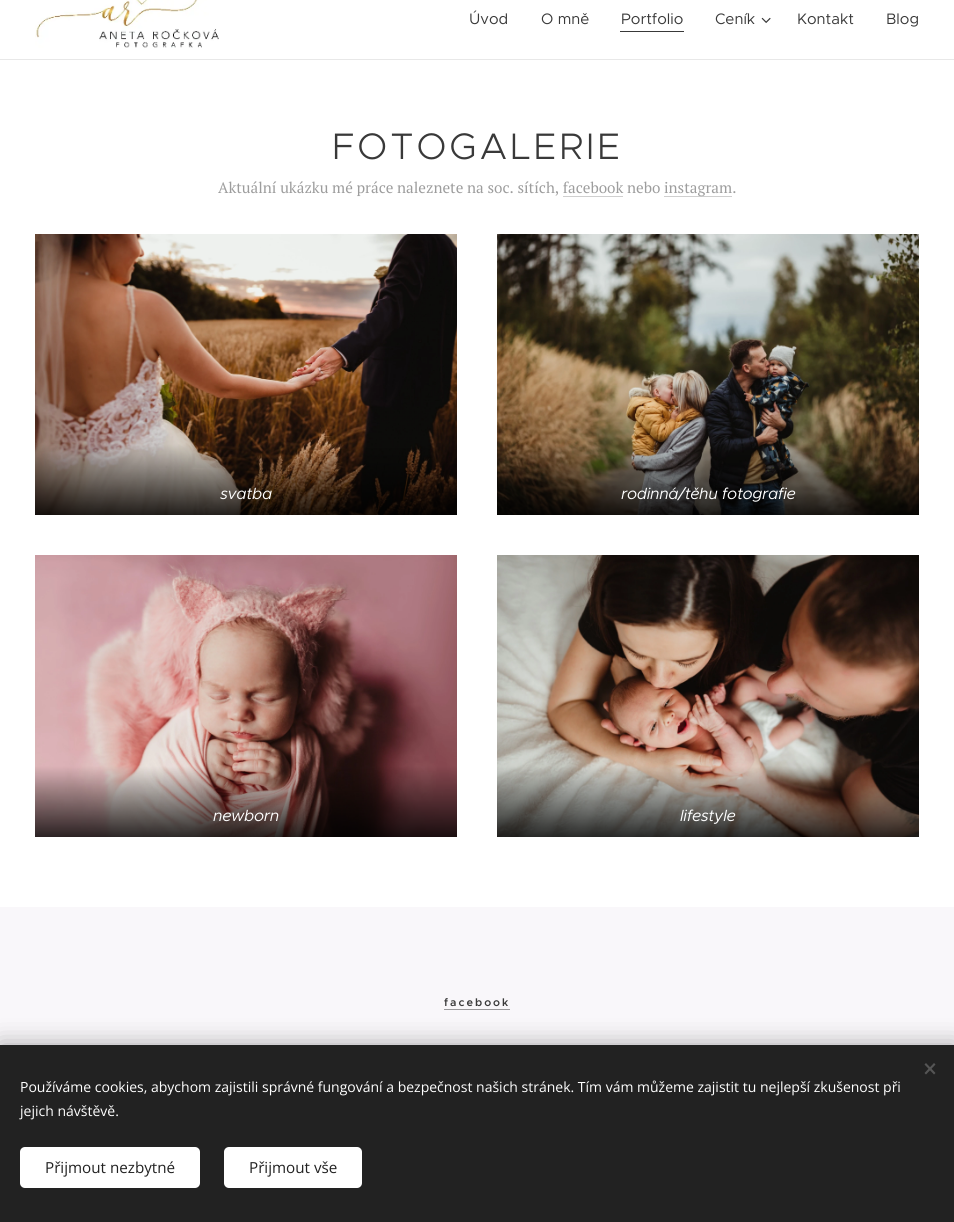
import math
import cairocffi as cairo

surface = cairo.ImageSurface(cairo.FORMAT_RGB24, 954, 1222)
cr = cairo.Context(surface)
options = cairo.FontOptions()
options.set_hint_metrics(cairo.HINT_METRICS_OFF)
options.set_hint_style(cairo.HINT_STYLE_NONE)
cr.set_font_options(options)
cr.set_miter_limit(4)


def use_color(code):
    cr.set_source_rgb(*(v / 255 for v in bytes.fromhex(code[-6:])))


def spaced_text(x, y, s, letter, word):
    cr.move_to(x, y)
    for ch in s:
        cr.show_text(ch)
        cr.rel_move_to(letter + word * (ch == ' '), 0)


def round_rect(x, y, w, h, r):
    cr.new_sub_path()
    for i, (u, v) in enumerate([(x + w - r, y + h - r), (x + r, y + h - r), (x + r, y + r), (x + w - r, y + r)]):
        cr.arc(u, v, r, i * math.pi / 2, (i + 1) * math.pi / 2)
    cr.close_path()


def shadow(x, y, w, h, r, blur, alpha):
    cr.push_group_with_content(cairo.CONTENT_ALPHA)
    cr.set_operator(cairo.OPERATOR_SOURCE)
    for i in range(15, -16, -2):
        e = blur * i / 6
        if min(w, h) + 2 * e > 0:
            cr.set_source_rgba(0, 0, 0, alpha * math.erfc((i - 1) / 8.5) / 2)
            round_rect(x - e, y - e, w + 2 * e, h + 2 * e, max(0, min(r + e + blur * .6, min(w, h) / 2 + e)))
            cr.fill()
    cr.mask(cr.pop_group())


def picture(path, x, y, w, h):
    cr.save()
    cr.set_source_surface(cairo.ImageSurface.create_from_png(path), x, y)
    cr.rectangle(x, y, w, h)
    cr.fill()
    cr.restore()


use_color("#ffffff")
cr.paint()
picture("img1.png", 35, 0, 184, 48)
cr.select_font_face("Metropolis")
cr.set_font_size(15.2)
use_color("#393939")
cr.move_to(469, 24)
cr.show_text("Úvod")
cr.move_to(541, 24)
cr.show_text("O mně")
cr.move_to(621, 24)
cr.show_text("Portfolio")
cr.rectangle(620, 31, 64, 1)
cr.fill()
cr.move_to(715, 24)
cr.show_text("Ceník")
picture("img2.png", 761, 17, 10, 6)
cr.move_to(797, 24)
cr.show_text("Kontakt")
cr.move_to(886, 24)
cr.show_text("Blog")
use_color("#e8e8e8")
cr.rectangle(0, 59, 954, 1)
cr.fill()
cr.select_font_face("Metropolis Light")
cr.set_font_size(37)
use_color("#393939")
spaced_text(332, 159, "FOTOGALERIE", 3, 0)
cr.select_font_face("PT Serif")
cr.set_font_size(15.2)
use_color("#9d9d9d")
cr.move_to(218, 193)
cr.show_text("Aktuální ukázku mé práce naleznete na soc. sítích, facebook nebo")
use_color("#cfcfcf")
cr.rectangle(664, 196, 68, 1)
cr.fill()
use_color("#9d9d9d")
cr.move_to(664, 193)
cr.show_text("instagram.")
use_color("#cfcfcf")
cr.rectangle(563, 196, 60, 1)
cr.fill()
picture("img3.png", 35, 234, 422, 281)
cr.select_font_face("Metropolis", cairo.FONT_SLANT_ITALIC)
cr.set_font_size(16)
use_color("#ffffff")
spaced_text(220, 499, "svatba", -0.3, 0)
picture("img4.png", 497, 234, 422, 281)
spaced_text(621, 499, "rodinná/těhu fotografie", -0.3, 0)
picture("img5.png", 35, 555, 422, 282)
spaced_text(213, 821, "newborn", -0.3, 0)
picture("img6.png", 497, 555, 422, 282)
spaced_text(680, 821, "lifestyle", -0.3, 0)
use_color("#f9f7fa")
cr.rectangle(0, 907, 954, 138)
cr.fill()
cr.select_font_face("Metropolis SemiBold")
cr.set_font_size(11)
use_color("#393939")
spaced_text(444, 1006, "facebook", 2, 0)
use_color("#99989a")
cr.rectangle(444, 1009, 66, 1)
cr.fill()
use_color("#000000")
shadow(0, 1045, 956, 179, 0, 12.5, 0.33)
use_color("#222222")
cr.rectangle(0, 1045, 954, 177)
cr.fill()
use_color("#555555")
cr.new_path()
cr.move_to(924.5, 1073)
cr.line_to(934, 1063)
cr.line_to(935.5, 1064.5)
cr.line_to(926, 1074.5)
cr.close_path()
cr.fill()
cr.new_path()
cr.move_to(926, 1063)
cr.line_to(935.5, 1073)
cr.line_to(934, 1074.5)
cr.line_to(924.5, 1064.5)
cr.close_path()
cr.fill()
cr.select_font_face("Open Sans")
cr.set_font_size(14)
use_color("#ffffff")
cr.move_to(20, 1092)
cr.show_text("Používáme cookies, abychom zajistili správné fungování a bezpečnost našich stránek. Tím vám můžeme zajistit tu nejlepší zkušenost při")
cr.move_to(20, 1116)
cr.show_text("jejich návštěvě.")
round_rect(20, 1147, 180, 41, 5)
cr.fill()
cr.set_font_size(15.2)
use_color("#222222")
cr.move_to(45, 1173)
cr.show_text("Přijmout nezbytné")
use_color("#ffffff")
round_rect(224, 1147, 138, 41, 5)
cr.fill()
use_color("#222222")
cr.move_to(249, 1173)
cr.show_text("Přijmout vše")
surface.write_to_png("result.png")
